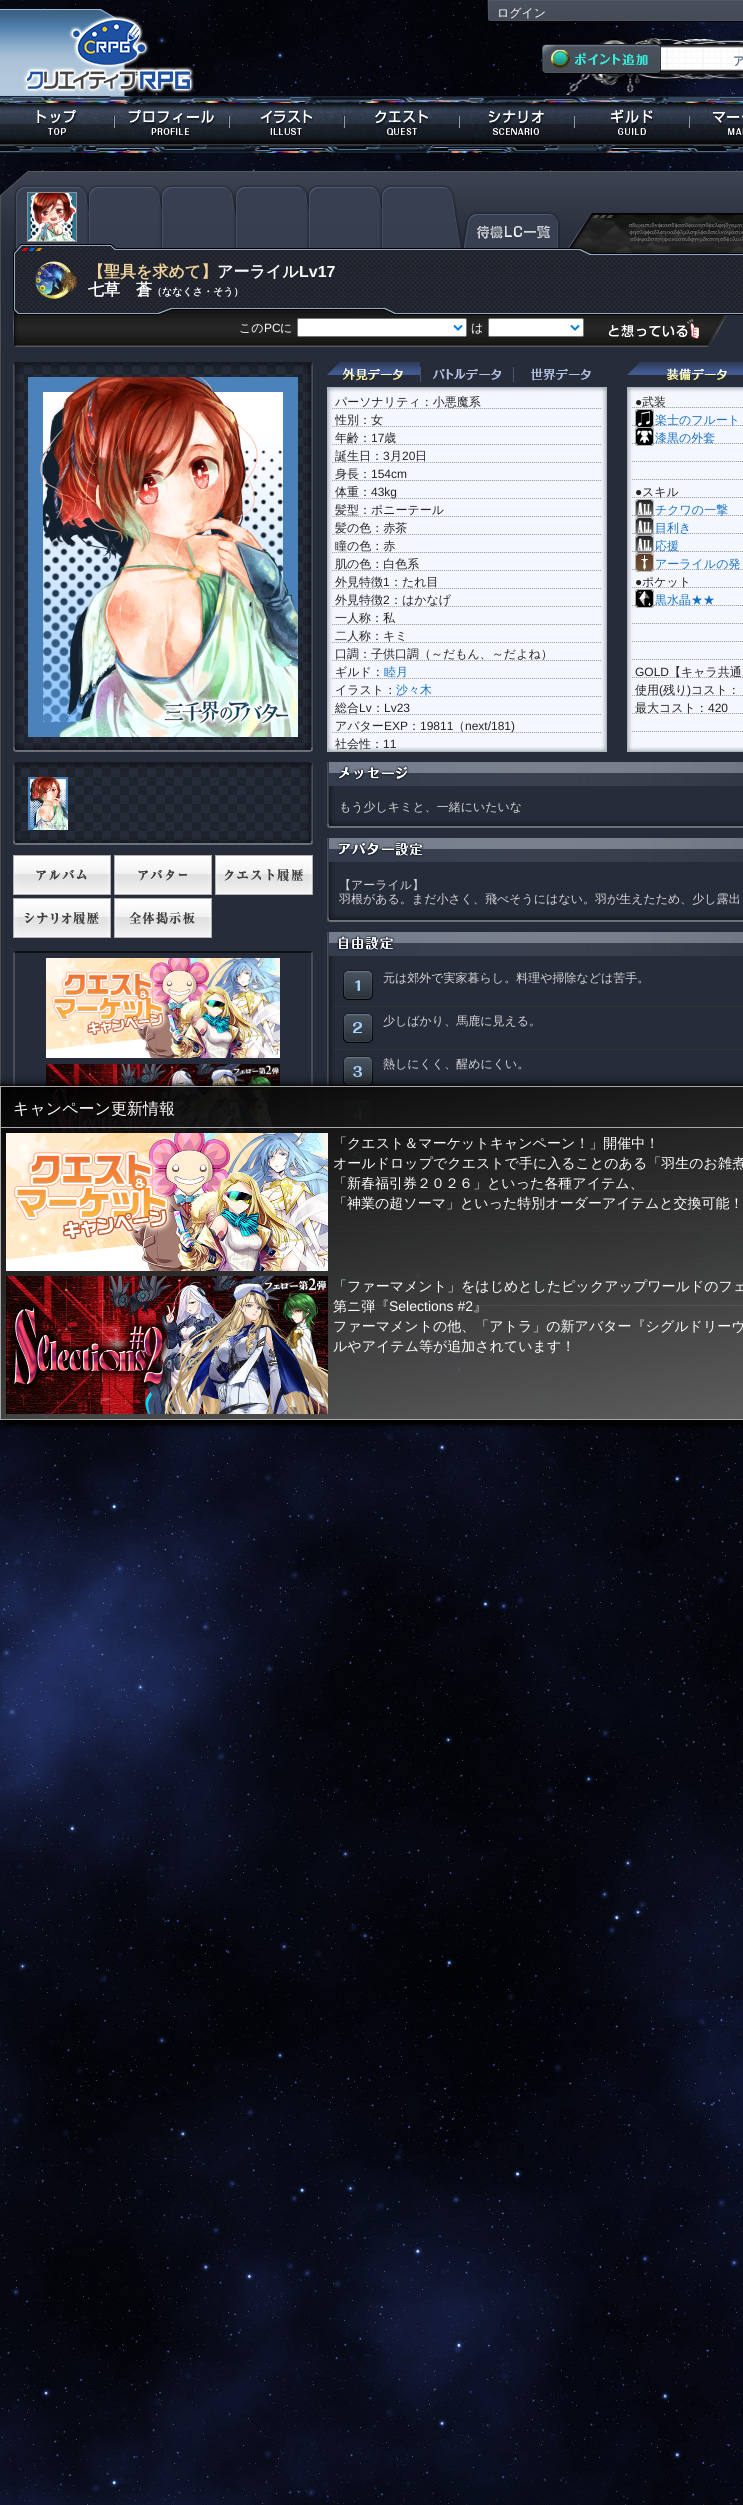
import math
import cairocffi as cairo

surface = cairo.ImageSurface(cairo.FORMAT_RGB24, 743, 2505)
cr = cairo.Context(surface)
options = cairo.FontOptions()
options.set_hint_metrics(cairo.HINT_METRICS_OFF)
options.set_hint_style(cairo.HINT_STYLE_NONE)
cr.set_font_options(options)
cr.set_miter_limit(4)


def use_color(code):
    cr.set_source_rgb(*(v / 255 for v in bytes.fromhex(code[-6:])))


def round_rect(x, y, w, h, r):
    cr.new_sub_path()
    for i, (u, v) in enumerate([(x + w - r, y + h - r), (x + r, y + h - r), (x + r, y + r), (x + w - r, y + r)]):
        cr.arc(u, v, r, i * math.pi / 2, (i + 1) * math.pi / 2)
    cr.close_path()


def shadow(x, y, w, h, r, blur, alpha):
    cr.push_group_with_content(cairo.CONTENT_ALPHA)
    cr.set_operator(cairo.OPERATOR_SOURCE)
    for i in range(15, -16, -2):
        e = blur * i / 6
        if min(w, h) + 2 * e > 0:
            cr.set_source_rgba(0, 0, 0, alpha * math.erfc((i - 1) / 8.5) / 2)
            round_rect(x - e, y - e, w + 2 * e, h + 2 * e, max(0, min(r + e + blur * .6, min(w, h) / 2 + e)))
            cr.fill()
    cr.mask(cr.pop_group())


def picture(path, x, y, w, h):
    cr.save()
    cr.set_source_surface(cairo.ImageSurface.create_from_png(path), x, y)
    cr.rectangle(x, y, w, h)
    cr.fill()
    cr.restore()


use_color("#ffffff")
cr.paint()
picture("img1.png", 0, 0, 743, 2505)
use_color("#262c3a")
cr.rectangle(0, 1345, 4, 4)
cr.fill()
picture("img2.png", 0, 9, 743, 144)
picture("img3.png", 23, 15, 171, 78)
picture("img4.png", 487, 0, 256, 22)
cr.select_font_face("WenQuanYi Zen Hei Medium")
cr.set_font_size(12)
use_color("#ffffff")
cr.move_to(497, 17)
cr.show_text("ログイン")
picture("img5.png", 542, 44, 119, 30)
cr.select_font_face("WenQuanYi Zen Hei", cairo.FONT_SLANT_NORMAL, cairo.FONT_WEIGHT_BOLD)
use_color("#57688a")
cr.move_to(733, 65)
cr.show_text("ア")
picture("img6.png", 37, 110, 78, 27)
picture("img7.png", 128, 110, 102, 28)
picture("img8.png", 260, 110, 85, 28)
picture("img9.png", 375, 110, 85, 28)
picture("img10.png", 488, 110, 87, 27)
picture("img11.png", 610, 109, 80, 28)
picture("img12.png", 712, 112, 31, 25)
picture("img13.png", 0, 171, 743, 176)
picture("img14.png", 14, 185, 729, 63)
cr.rectangle(27.5, 192.5, 49, 49)
use_color("#908e8f")
cr.set_line_width(1)
cr.stroke()
picture("img15.png", 28, 193, 48, 48)
picture("img16.png", 13, 248, 730, 64)
picture("img17.png", 35, 261, 43, 38)
cr.set_font_size(16)
use_color("#f2d49b")
cr.move_to(88, 277)
cr.show_text("【聖具を求めて】")
use_color("#ffffff")
cr.move_to(217, 277)
cr.show_text("アーライル")
cr.select_font_face("Liberation Sans", cairo.FONT_SLANT_NORMAL, cairo.FONT_WEIGHT_BOLD)
cr.move_to(299, 277)
cr.show_text("Lv17")
cr.select_font_face("WenQuanYi Zen Hei", cairo.FONT_SLANT_NORMAL, cairo.FONT_WEIGHT_BOLD)
cr.move_to(88, 295)
cr.show_text("七草　蒼")
cr.set_font_size(10)
cr.move_to(152, 295)
cr.show_text("（ななくさ・そう）")
picture("img18.png", 13, 312, 730, 35)
cr.select_font_face("WenQuanYi Zen Hei Medium")
cr.set_font_size(12)
cr.move_to(239, 332)
cr.show_text("この")
cr.select_font_face("Liberation Sans")
cr.move_to(264, 332)
cr.show_text("PC")
cr.select_font_face("WenQuanYi Zen Hei Medium")
cr.move_to(280, 332)
cr.show_text("に")
round_rect(297.5, 318.5, 169, 18, 1.5)
cr.fill_preserve()
use_color("#767676")
cr.stroke()
cr.new_path()
cr.move_to(454, 325.5)
cr.line_to(458, 329.5)
cr.line_to(462, 325.5)
use_color("#007cdb")
cr.set_line_width(2)
cr.stroke()
use_color("#ffffff")
cr.move_to(471, 332)
cr.show_text("は")
round_rect(488.5, 318.5, 95, 18, 1.5)
cr.fill_preserve()
use_color("#767676")
cr.set_line_width(1)
cr.stroke()
cr.new_path()
cr.move_to(571, 325.5)
cr.line_to(575, 329.5)
cr.line_to(579, 325.5)
use_color("#007cdb")
cr.set_line_width(2)
cr.stroke()
picture("img19.png", 1, 1207, 742, 25)
picture("img20.png", 0, 347, 743, 860)
picture("img21.png", 327, 362, 280, 390)
use_color("#242424")
cr.move_to(335, 406)
cr.show_text("パーソナリティ：小悪魔系")
cr.move_to(335, 424)
cr.show_text("性別：女")
cr.move_to(335, 442)
cr.show_text("年齢：")
cr.select_font_face("Liberation Sans")
cr.move_to(371, 442)
cr.show_text("17")
cr.select_font_face("WenQuanYi Zen Hei Medium")
cr.move_to(384, 442)
cr.show_text("歳")
cr.move_to(335, 460)
cr.show_text("誕生日：")
cr.select_font_face("Liberation Sans")
cr.move_to(383, 460)
cr.show_text("3")
cr.select_font_face("WenQuanYi Zen Hei Medium")
cr.move_to(390, 460)
cr.show_text("月")
cr.select_font_face("Liberation Sans")
cr.move_to(402, 460)
cr.show_text("20")
cr.select_font_face("WenQuanYi Zen Hei Medium")
cr.move_to(415, 460)
cr.show_text("日")
cr.move_to(335, 478)
cr.show_text("身長：")
cr.select_font_face("Liberation Sans")
cr.move_to(371, 478)
cr.show_text("154cm")
cr.select_font_face("WenQuanYi Zen Hei Medium")
cr.move_to(335, 496)
cr.show_text("体重：")
cr.select_font_face("Liberation Sans")
cr.move_to(371, 496)
cr.show_text("43kg")
cr.select_font_face("WenQuanYi Zen Hei Medium")
cr.move_to(335, 514)
cr.show_text("髪型：ポニーテール")
cr.move_to(335, 532)
cr.show_text("髪の色：赤茶")
cr.move_to(335, 550)
cr.show_text("瞳の色：赤")
cr.move_to(335, 568)
cr.show_text("肌の色：白色系")
cr.move_to(335, 586)
cr.show_text("外見特徴")
cr.select_font_face("Liberation Sans")
cr.move_to(383, 586)
cr.show_text("1")
cr.select_font_face("WenQuanYi Zen Hei Medium")
cr.move_to(390, 586)
cr.show_text("：たれ目")
cr.move_to(335, 604)
cr.show_text("外見特徴")
cr.select_font_face("Liberation Sans")
cr.move_to(383, 604)
cr.show_text("2")
cr.select_font_face("WenQuanYi Zen Hei Medium")
cr.move_to(390, 604)
cr.show_text("：はかなげ")
cr.move_to(335, 622)
cr.show_text("一人称：私")
cr.move_to(335, 640)
cr.show_text("二人称：キミ")
cr.move_to(335, 658)
cr.show_text("口調：子供口調（～だもん、～だよね）")
cr.move_to(335, 676)
cr.show_text("ギルド：")
use_color("#1871c3")
cr.move_to(384, 676)
cr.show_text("睦月")
use_color("#242424")
cr.move_to(335, 694)
cr.show_text("イラスト：")
use_color("#1871c3")
cr.move_to(396, 694)
cr.show_text("沙々木")
use_color("#242424")
cr.move_to(335, 712)
cr.show_text("総合")
cr.select_font_face("Liberation Sans")
cr.move_to(359, 712)
cr.show_text("Lv")
cr.select_font_face("WenQuanYi Zen Hei Medium")
cr.move_to(372, 712)
cr.show_text("：")
cr.select_font_face("Liberation Sans")
cr.move_to(384, 712)
cr.show_text("Lv23")
cr.select_font_face("WenQuanYi Zen Hei Medium")
cr.move_to(335, 730)
cr.show_text("アバター")
cr.select_font_face("Liberation Sans")
cr.move_to(384, 730)
cr.show_text("EXP")
cr.select_font_face("WenQuanYi Zen Hei Medium")
cr.move_to(408, 730)
cr.show_text("：")
cr.select_font_face("Liberation Sans")
cr.move_to(420, 730)
cr.show_text("19811")
cr.select_font_face("WenQuanYi Zen Hei Medium")
cr.move_to(453, 730)
cr.show_text("（")
cr.select_font_face("Liberation Sans")
cr.move_to(465, 730)
cr.show_text("next/181)")
cr.select_font_face("WenQuanYi Zen Hei Medium")
cr.move_to(335, 748)
cr.show_text("社会性：")
cr.select_font_face("Liberation Sans")
cr.move_to(383, 748)
cr.show_text("11")
picture("img22.png", 627, 362, 116, 390)
cr.move_to(635, 406)
cr.show_text("●")
cr.select_font_face("WenQuanYi Zen Hei Medium")
cr.move_to(642, 406)
cr.show_text("武装")
picture("img23.png", 635, 409, 19, 19)
use_color("#1871c3")
cr.move_to(655, 424)
cr.show_text("楽士のフルート")
picture("img24.png", 635, 427, 19, 19)
cr.move_to(655, 442)
cr.show_text("漆黒の外套")
cr.select_font_face("Liberation Sans")
use_color("#242424")
cr.move_to(635, 496)
cr.show_text("●")
cr.select_font_face("WenQuanYi Zen Hei Medium")
cr.move_to(642, 496)
cr.show_text("スキル")
picture("img25.png", 635, 499, 19, 19)
use_color("#1871c3")
cr.move_to(655, 514)
cr.show_text("チクワの一撃")
picture("img26.png", 635, 517, 19, 19)
cr.move_to(655, 532)
cr.show_text("目利き")
picture("img27.png", 635, 535, 19, 19)
cr.move_to(655, 550)
cr.show_text("応援")
picture("img28.png", 635, 553, 19, 19)
cr.move_to(655, 568)
cr.show_text("アーライルの発")
cr.select_font_face("Liberation Sans")
use_color("#242424")
cr.move_to(635, 586)
cr.show_text("●")
cr.select_font_face("WenQuanYi Zen Hei Medium")
cr.move_to(642, 586)
cr.show_text("ポケット")
picture("img29.png", 635, 589, 19, 19)
use_color("#1871c3")
cr.move_to(655, 604)
cr.show_text("黒水晶★★")
cr.select_font_face("Liberation Sans")
use_color("#242424")
cr.move_to(635, 676)
cr.show_text("GOLD")
cr.select_font_face("WenQuanYi Zen Hei Medium")
cr.move_to(669, 676)
cr.show_text("【キャラ共通")
cr.move_to(635, 694)
cr.show_text("使用")
cr.select_font_face("Liberation Sans")
cr.move_to(659, 694)
cr.show_text("(")
cr.select_font_face("WenQuanYi Zen Hei Medium")
cr.move_to(663, 694)
cr.show_text("残り")
cr.select_font_face("Liberation Sans")
cr.move_to(687, 694)
cr.show_text(")")
cr.select_font_face("WenQuanYi Zen Hei Medium")
cr.move_to(691, 694)
cr.show_text("コスト：")
cr.move_to(635, 712)
cr.show_text("最大コスト：")
cr.select_font_face("Liberation Sans")
cr.move_to(708, 712)
cr.show_text("420")
picture("img30.png", 327, 762, 416, 24)
picture("img31.png", 327, 786, 416, 42)
cr.select_font_face("WenQuanYi Zen Hei Medium")
use_color("#d7d6d6")
cr.move_to(339, 811)
cr.show_text("もう少しキミと、一緒にいたいな")
picture("img32.png", 327, 838, 416, 24)
picture("img33.png", 327, 862, 416, 60)
cr.move_to(339, 889)
cr.show_text("【アーライル】")
cr.move_to(339, 903)
cr.show_text("羽根がある。まだ小さく、飛べそうにはない。羽が生えたため、少し露出")
picture("img34.png", 327, 932, 416, 24)
picture("img35.png", 327, 956, 416, 236)
cr.move_to(383, 982)
cr.show_text("元は郊外で実家暮らし。料理や掃除などは苦手。")
cr.move_to(383, 1025)
cr.show_text("少しばかり、馬鹿に見える。")
cr.move_to(383, 1068)
cr.show_text("熱しにくく、醒めにくい。")
picture("img36.png", 13, 362, 300, 390)
picture("img37.png", 28, 377, 270, 360)
picture("img38.png", 13, 762, 300, 83)
picture("img39.png", 28, 777, 40, 53)
picture("img40.png", 13, 855, 98, 40)
picture("img41.png", 114, 855, 98, 40)
picture("img42.png", 215, 855, 98, 40)
picture("img43.png", 13, 898, 98, 40)
picture("img44.png", 114, 898, 98, 40)
cr.new_path()
cr.move_to(14.5, 952.5)
cr.line_to(16, 952)
cr.line_to(310, 952)
cr.line_to(311.5, 952.5)
use_color("#0f1015")
cr.stroke()
cr.new_path()
cr.move_to(311.5, 952.5)
cr.line_to(312, 954)
cr.line_to(312, 1169)
cr.line_to(311.5, 1170.5)
use_color("#494d58")
cr.stroke()
cr.new_path()
cr.move_to(14.5, 1170.5)
cr.line_to(14, 1169)
cr.line_to(14, 954)
cr.line_to(14.5, 952.5)
cr.stroke()
picture("img45.png", 46, 958, 234, 100)
picture("img46.png", 46, 1064, 234, 69)
use_color("#ffffff")
cr.rectangle(0, 1305, 743, 1)
cr.fill()
cr.save()
cr.rectangle(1, 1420, 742, 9)
cr.clip()
use_color("#000000")
shadow(5, 1091, 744, 334, 0, 2, 1)
cr.restore()
cr.save()
cr.set_fill_rule(cairo.FILL_RULE_EVEN_ODD)
cr.new_path()
cr.move_to(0, 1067)
cr.line_to(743, 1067)
cr.line_to(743, 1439)
cr.line_to(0, 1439)
cr.close_path()
cr.move_to(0, 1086)
cr.line_to(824, 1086)
cr.line_to(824, 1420)
cr.line_to(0, 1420)
cr.close_path()
cr.clip()
use_color("#000000")
shadow(0, 1086, 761, 334, 0, 6, 1)
cr.restore()
cr.save()
cr.set_fill_rule(cairo.FILL_RULE_EVEN_ODD)
cr.new_path()
cr.move_to(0, 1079)
cr.line_to(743, 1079)
cr.line_to(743, 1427)
cr.line_to(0, 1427)
cr.close_path()
cr.move_to(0, 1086)
cr.line_to(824, 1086)
cr.line_to(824, 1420)
cr.line_to(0, 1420)
cr.close_path()
cr.clip()
use_color("#000000")
shadow(0, 1086, 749, 334, 0, 2, 1)
cr.restore()
gradient = cairo.LinearGradient(371, 1022, 453, 1484)
gradient.add_color_stop_rgba(0, 0, 0, 0, 0.95)
gradient.add_color_stop_rgba(1, 0.392, 0.392, 0.392, 0.95)
cr.set_source(gradient)
cr.rectangle(1, 1087, 742, 332)
cr.fill()
cr.rectangle(0.5, 1086.5, 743, 333)
use_color("#aaaaaa")
cr.set_line_width(1)
cr.stroke()
cr.set_font_size(16)
use_color("#ffffff")
cr.move_to(13, 1114)
cr.show_text("キャンペーン更新情報")
use_color("#aaaaaa")
cr.rectangle(1, 1127, 742, 1)
cr.fill()
picture("img47.png", 6, 1133, 322, 138)
cr.set_font_size(14)
use_color("#ffffff")
cr.move_to(333, 1148)
cr.show_text("「クエスト＆マーケットキャンペーン！」開催中！")
cr.move_to(333, 1168)
cr.show_text("オールドロップでクエストで手に入ることのある「羽生のお雑煮")
cr.move_to(333, 1188)
cr.show_text("「新春福引券２０２６」といった各種アイテム、")
cr.save()
cr.rectangle(328, 1133, 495, 77)
cr.clip()
cr.move_to(333, 1208)
cr.show_text("「神業の超ソーマ」といった特別オーダーアイテムと交換可能！")
cr.restore()
picture("img48.png", 6, 1276, 322, 138)
cr.move_to(333, 1291)
cr.show_text("「ファーマメント」をはじめとしたピックアップワールドのフェ")
cr.move_to(333, 1311)
cr.show_text("第ニ弾『")
cr.select_font_face("Liberation Sans")
cr.move_to(389, 1311)
cr.show_text("Selections #2")
cr.select_font_face("WenQuanYi Zen Hei Medium")
cr.move_to(473, 1311)
cr.show_text("』")
cr.move_to(333, 1331)
cr.show_text("ファーマメントの他、「アトラ」の新アバター『シグルドリーヴ")
cr.move_to(333, 1351)
cr.show_text("ルやアイテム等が追加されています！")
surface.write_to_png("result.png")
